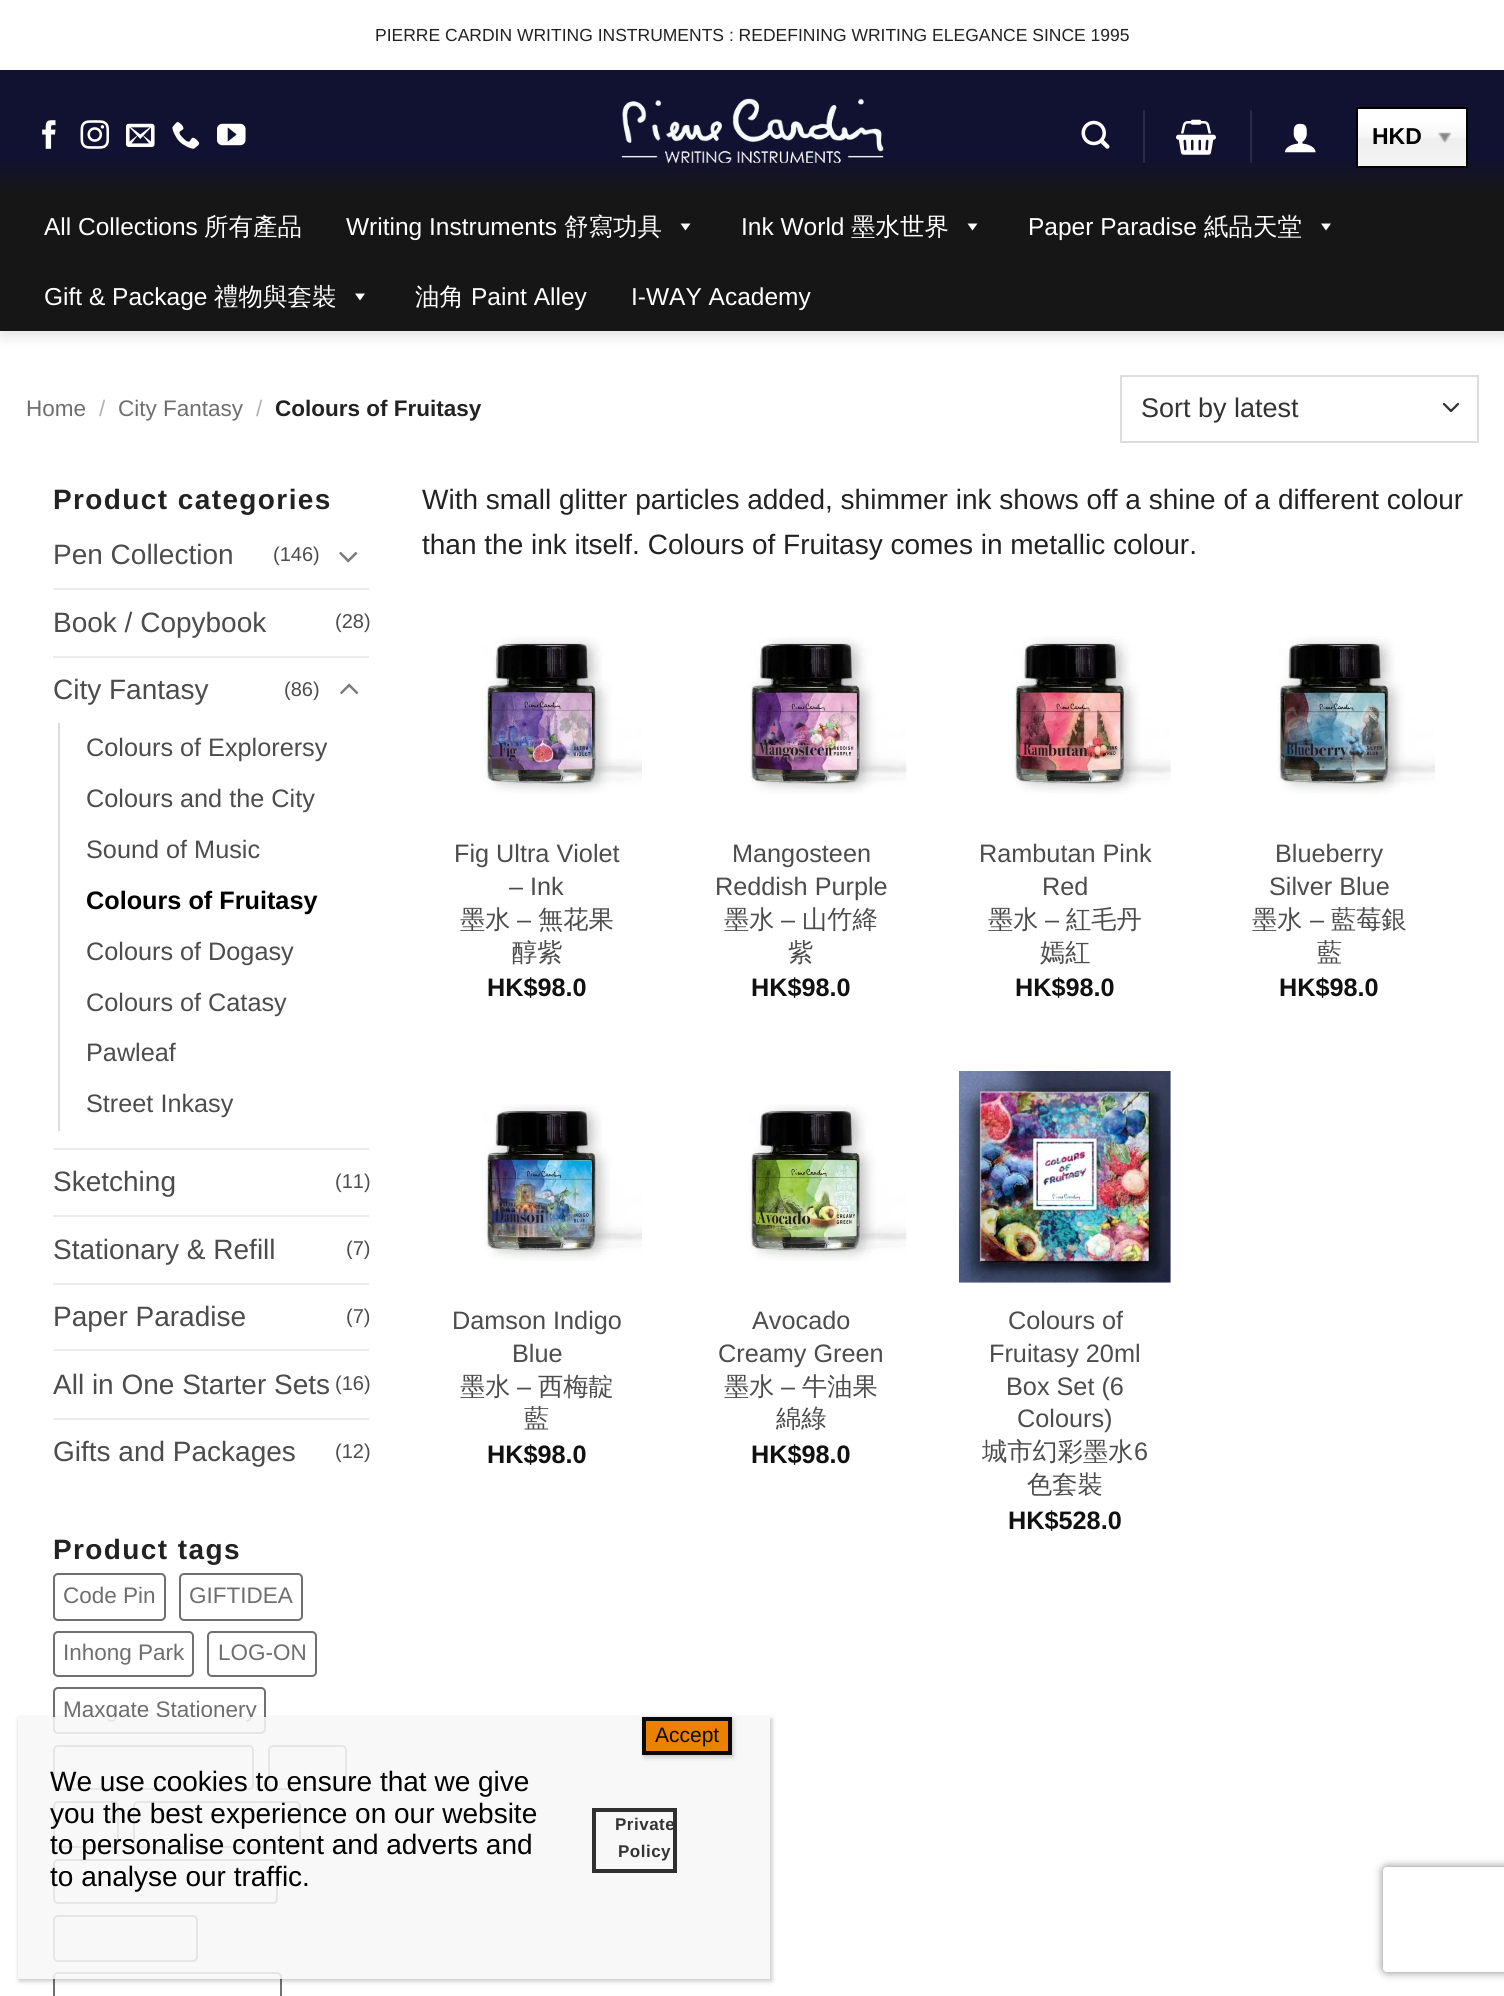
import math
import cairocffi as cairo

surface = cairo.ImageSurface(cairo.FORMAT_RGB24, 1504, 1996)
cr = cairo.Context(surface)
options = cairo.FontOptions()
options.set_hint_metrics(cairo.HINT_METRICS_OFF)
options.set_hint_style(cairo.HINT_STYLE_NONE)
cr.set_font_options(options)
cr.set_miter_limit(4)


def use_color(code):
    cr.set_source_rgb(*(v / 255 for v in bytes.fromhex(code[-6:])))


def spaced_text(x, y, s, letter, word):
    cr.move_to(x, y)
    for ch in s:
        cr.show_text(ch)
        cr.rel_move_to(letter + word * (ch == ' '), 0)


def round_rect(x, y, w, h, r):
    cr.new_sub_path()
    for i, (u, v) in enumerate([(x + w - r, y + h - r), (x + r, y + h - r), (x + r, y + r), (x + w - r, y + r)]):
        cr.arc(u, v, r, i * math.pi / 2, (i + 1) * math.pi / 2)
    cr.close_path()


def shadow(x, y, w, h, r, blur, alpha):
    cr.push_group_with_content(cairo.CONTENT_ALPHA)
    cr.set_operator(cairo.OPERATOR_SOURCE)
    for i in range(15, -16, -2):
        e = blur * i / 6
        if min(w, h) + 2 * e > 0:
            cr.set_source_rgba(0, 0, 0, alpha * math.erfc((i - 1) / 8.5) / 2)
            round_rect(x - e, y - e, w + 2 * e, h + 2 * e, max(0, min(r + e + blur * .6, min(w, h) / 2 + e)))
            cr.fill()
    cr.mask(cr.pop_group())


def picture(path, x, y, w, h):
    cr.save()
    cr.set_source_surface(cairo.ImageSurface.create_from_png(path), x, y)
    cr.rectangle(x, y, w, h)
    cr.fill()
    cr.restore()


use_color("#ffffff")
cr.paint()
use_color("#000000")
shadow(2, 2, 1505, 331, 0, 9, 0.15)
use_color("#ffffff")
cr.rectangle(0, 0, 1504, 70)
cr.fill()
cr.select_font_face("Liberation Sans")
cr.set_font_size(17.5)
use_color("#222222")
cr.move_to(375, 41)
cr.show_text("PIERRE CARDIN WRITING INSTRUMENTS : REDEFINING WRITING ELEGANCE SINCE 1995")
gradient = cairo.LinearGradient(753, 191, 753, 70)
gradient.add_color_stop_rgba(0, 0.086, 0.086, 0.098, 1)
gradient.add_color_stop_rgba(0.3, 0.067, 0.067, 0.196, 1)
cr.set_source(gradient)
cr.rectangle(0, 70, 1504, 121)
cr.fill()
gradient = cairo.LinearGradient(753, 191, 753, 70)
gradient.add_color_stop_rgba(0, 0.176, 0.176, 0.188, 1)
gradient.add_color_stop_rgba(0.3, 0.161, 0.161, 0.278, 1)
cr.set_source(gradient)
cr.rectangle(1250, 110, 2, 53)
cr.fill()
cr.rectangle(1143, 110, 2, 53)
cr.fill()
picture("img1.png", 42, 120, 14, 29)
picture("img2.png", 80, 120, 30, 29)
picture("img3.png", 126, 123, 29, 24)
picture("img4.png", 172, 122, 28, 27)
picture("img5.png", 217, 123, 29, 23)
picture("img6.png", 621, 98, 263, 65)
picture("img7.png", 1081, 120, 29, 29)
picture("img8.png", 1176, 119, 40, 36)
picture("img9.png", 1285, 123, 31, 30)
gradient = cairo.LinearGradient(1412, 109, 1412, 166)
gradient.add_color_stop_rgba(0.2, 1, 1, 1, 1)
gradient.add_color_stop_rgba(0.5, 0.965, 0.965, 0.965, 1)
gradient.add_color_stop_rgba(0.52, 0.933, 0.933, 0.933, 1)
gradient.add_color_stop_rgba(1, 0.957, 0.957, 0.957, 1)
cr.set_source(gradient)
cr.rectangle(1358, 109, 108, 57)
cr.fill()
cr.rectangle(1357, 108, 110, 59)
use_color("#000000")
cr.stroke()
cr.select_font_face("Liberation Sans", cairo.FONT_SLANT_NORMAL, cairo.FONT_WEIGHT_BOLD)
cr.set_font_size(23)
cr.move_to(1372, 144)
cr.show_text("HKD")
picture("img10.png", 1438, 132, 14, 11)
use_color("#161616")
cr.rectangle(0, 191, 1504, 140)
cr.fill()
cr.select_font_face("Liberation Sans")
cr.set_font_size(24.5)
use_color("#ffffff")
cr.move_to(44, 235)
cr.show_text("All Collections")
cr.select_font_face("WenQuanYi Zen Hei Medium")
cr.move_to(204, 235)
cr.show_text("所有產品")
cr.select_font_face("Liberation Sans")
cr.move_to(346, 235)
cr.show_text("Writing Instruments")
cr.select_font_face("WenQuanYi Zen Hei Medium")
cr.move_to(564, 235)
cr.show_text("舒寫功具")
cr.new_path()
cr.move_to(690.5, 223.5)
cr.line_to(685.5, 230.5)
cr.line_to(680.5, 223.5)
cr.close_path()
cr.fill()
cr.select_font_face("Liberation Sans")
cr.move_to(741, 235)
cr.show_text("Ink World")
cr.select_font_face("WenQuanYi Zen Hei Medium")
cr.move_to(851, 235)
cr.show_text("墨水世界")
cr.new_path()
cr.move_to(977.5, 223.5)
cr.line_to(972.5, 230.5)
cr.line_to(967.5, 223.5)
cr.close_path()
cr.fill()
cr.select_font_face("Liberation Sans")
cr.move_to(1028, 235)
cr.show_text("Paper Paradise")
cr.select_font_face("WenQuanYi Zen Hei Medium")
cr.move_to(1204, 235)
cr.show_text("紙品天堂")
cr.new_path()
cr.move_to(1331, 223.5)
cr.line_to(1326, 230.5)
cr.line_to(1321, 223.5)
cr.close_path()
cr.fill()
cr.select_font_face("Liberation Sans")
cr.move_to(44, 305)
cr.show_text("Gift & Package")
cr.select_font_face("WenQuanYi Zen Hei Medium")
cr.move_to(214, 305)
cr.show_text("禮物與套裝")
cr.new_path()
cr.move_to(365, 293.5)
cr.line_to(360, 300.5)
cr.line_to(355, 293.5)
cr.close_path()
cr.fill()
cr.move_to(415, 305)
cr.show_text("油角")
cr.select_font_face("Liberation Sans")
cr.move_to(471, 305)
cr.show_text("Paint Alley")
cr.move_to(631, 305)
cr.show_text("I-WAY Academy")
cr.set_font_size(22.5)
use_color("#6e6e6e")
cr.move_to(26, 416)
cr.show_text("Home")
use_color("#b2b2b2")
cr.move_to(99, 416)
cr.show_text("/")
use_color("#6e6e6e")
cr.move_to(118, 416)
cr.show_text("City Fantasy")
use_color("#b2b2b2")
cr.move_to(256, 416)
cr.show_text("/")
cr.select_font_face("Liberation Sans", cairo.FONT_SLANT_NORMAL, cairo.FONT_WEIGHT_BOLD)
use_color("#222222")
cr.move_to(275, 416)
cr.show_text("Colours of Fruitasy")
cr.new_path()
cr.move_to(1444, 404)
cr.line_to(1451, 411)
cr.line_to(1458, 404)
use_color("#333333")
cr.set_line_width(2.3)
cr.set_line_cap(cairo.LINE_CAP_ROUND)
cr.set_line_join(cairo.LINE_JOIN_ROUND)
cr.stroke()
cr.rectangle(1121, 376, 357, 66)
use_color("#dddddd")
cr.set_line_width(2)
cr.set_line_cap(cairo.LINE_CAP_BUTT)
cr.set_line_join(cairo.LINE_JOIN_MITER)
cr.stroke()
cr.select_font_face("Liberation Sans")
cr.set_font_size(27)
use_color("#333333")
cr.move_to(1141, 417)
cr.show_text("Sort by latest")
cr.select_font_face("Liberation Sans", cairo.FONT_SLANT_NORMAL, cairo.FONT_WEIGHT_BOLD)
cr.set_font_size(28)
use_color("#222222")
spaced_text(53, 509, "Product categories", 1.4, 0)
cr.select_font_face("Liberation Sans")
use_color("#4c4c4c")
cr.move_to(53, 564)
cr.show_text("Pen Collection")
cr.set_font_size(20)
cr.move_to(273, 561)
cr.show_text("(146)")
picture("img11.png", 339, 551, 19, 12)
use_color("#ececec")
cr.rectangle(53, 588, 316, 2)
cr.fill()
cr.set_font_size(28)
use_color("#4c4c4c")
cr.move_to(53, 632)
cr.show_text("Book / Copybook")
cr.set_font_size(20)
cr.move_to(335, 628)
cr.show_text("(28)")
use_color("#ececec")
cr.rectangle(53, 656, 316, 2)
cr.fill()
cr.set_font_size(28)
use_color("#4c4c4c")
cr.move_to(53, 699)
cr.show_text("City Fantasy")
cr.set_font_size(20)
cr.move_to(284, 696)
cr.show_text("(86)")
picture("img12.png", 340, 683, 19, 11)
use_color("#dddddd")
cr.rectangle(58, 723, 2, 408)
cr.fill()
cr.set_font_size(25.25)
use_color("#4c4c4c")
cr.move_to(86, 756)
cr.show_text("Colours of Explorersy")
cr.move_to(86, 807)
cr.show_text("Colours and the City")
cr.move_to(86, 858)
cr.show_text("Sound of Music")
cr.select_font_face("Liberation Sans", cairo.FONT_SLANT_NORMAL, cairo.FONT_WEIGHT_BOLD)
use_color("#000000")
cr.move_to(86, 909)
cr.show_text("Colours of Fruitasy")
cr.select_font_face("Liberation Sans")
use_color("#4c4c4c")
cr.move_to(86, 960)
cr.show_text("Colours of Dogasy")
cr.move_to(86, 1011)
cr.show_text("Colours of Catasy")
cr.move_to(86, 1061)
cr.show_text("Pawleaf")
cr.move_to(86, 1112)
cr.show_text("Street Inkasy")
use_color("#ececec")
cr.rectangle(53, 1148, 316, 2)
cr.fill()
cr.set_font_size(28)
use_color("#4c4c4c")
cr.move_to(53, 1191)
cr.show_text("Sketching")
cr.set_font_size(20)
cr.move_to(335, 1188)
cr.show_text("(11)")
use_color("#ececec")
cr.rectangle(53, 1215, 316, 2)
cr.fill()
cr.set_font_size(28)
use_color("#4c4c4c")
cr.move_to(53, 1259)
cr.show_text("Stationary & Refill")
cr.set_font_size(20)
cr.move_to(346, 1255)
cr.show_text("(7)")
use_color("#ececec")
cr.rectangle(53, 1283, 316, 2)
cr.fill()
cr.set_font_size(28)
use_color("#4c4c4c")
cr.move_to(53, 1326)
cr.show_text("Paper Paradise")
cr.set_font_size(20)
cr.move_to(346, 1323)
cr.show_text("(7)")
use_color("#ececec")
cr.rectangle(53, 1349, 316, 2)
cr.fill()
cr.set_font_size(28)
use_color("#4c4c4c")
cr.move_to(53, 1394)
cr.show_text("All in One Starter Sets")
cr.set_font_size(20)
cr.move_to(335, 1390)
cr.show_text("(16)")
use_color("#ececec")
cr.rectangle(53, 1418, 316, 2)
cr.fill()
cr.set_font_size(28)
use_color("#4c4c4c")
cr.move_to(53, 1461)
cr.show_text("Gifts and Packages")
cr.set_font_size(20)
cr.move_to(335, 1458)
cr.show_text("(12)")
cr.select_font_face("Liberation Sans", cairo.FONT_SLANT_NORMAL, cairo.FONT_WEIGHT_BOLD)
cr.set_font_size(28)
use_color("#222222")
spaced_text(53, 1559, "Product tags", 1.4, 0)
round_rect(54, 1574, 111, 46, 4)
use_color("#707070")
cr.stroke()
cr.select_font_face("Liberation Sans")
cr.set_font_size(22.5)
use_color("#6e6e6e")
cr.move_to(63, 1603)
cr.show_text("Code Pin")
round_rect(180, 1574, 122, 46, 4)
use_color("#707070")
cr.stroke()
use_color("#6e6e6e")
cr.move_to(189, 1603)
cr.show_text("GIFTIDEA")
round_rect(54, 1632, 139, 44, 4)
use_color("#707070")
cr.stroke()
use_color("#6e6e6e")
cr.move_to(63, 1660)
cr.show_text("Inhong Park")
round_rect(208, 1632, 108, 44, 4)
use_color("#707070")
cr.stroke()
use_color("#6e6e6e")
cr.move_to(218, 1660)
cr.show_text("LOG-ON")
round_rect(54, 1688, 211, 45, 4)
use_color("#707070")
cr.stroke()
use_color("#6e6e6e")
cr.move_to(63, 1717)
cr.show_text("Maxgate Stationery")
round_rect(54, 1746, 199, 43, 4)
use_color("#707070")
cr.stroke()
round_rect(269, 1746, 77, 43, 4)
cr.stroke()
round_rect(54, 1802, 64, 45, 4)
cr.stroke()
round_rect(134, 1802, 166, 45, 4)
cr.stroke()
round_rect(54, 1860, 223, 43, 4)
cr.stroke()
round_rect(54, 1916, 143, 45, 4)
cr.stroke()
round_rect(54, 1973, 227, 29, 4)
cr.stroke()
cr.set_font_size(28)
use_color("#222222")
cr.move_to(422, 509)
cr.show_text("With small glitter particles added, shimmer ink shows off a shine of a different colour")
cr.move_to(422, 554)
cr.show_text("than the ink itself. Colours of Fruitasy comes in metallic colour.")
picture("img13.png", 483, 636, 159, 158)
cr.set_font_size(25.25)
use_color("#4c4c4c")
cr.move_to(454, 862)
cr.show_text("Fig Ultra Violet")
cr.move_to(509, 895)
cr.show_text("– Ink")
cr.select_font_face("WenQuanYi Zen Hei Medium")
cr.move_to(460, 928)
cr.show_text("墨水")
cr.select_font_face("Liberation Sans")
cr.move_to(517, 928)
cr.show_text("–")
cr.select_font_face("WenQuanYi Zen Hei Medium")
cr.move_to(538, 928)
cr.show_text("無花果")
cr.move_to(512, 961)
cr.show_text("醇紫")
cr.select_font_face("Liberation Sans", cairo.FONT_SLANT_NORMAL, cairo.FONT_WEIGHT_BOLD)
use_color("#111111")
cr.move_to(487, 996)
cr.show_text("HK$98.0")
picture("img14.png", 749, 637, 158, 157)
cr.select_font_face("Liberation Sans")
use_color("#4c4c4c")
cr.move_to(732, 862)
cr.show_text("Mangosteen")
cr.move_to(715, 895)
cr.show_text("Reddish Purple")
cr.select_font_face("WenQuanYi Zen Hei Medium")
cr.move_to(724, 928)
cr.show_text("墨水")
cr.select_font_face("Liberation Sans")
cr.move_to(781, 928)
cr.show_text("–")
cr.select_font_face("WenQuanYi Zen Hei Medium")
cr.move_to(802, 928)
cr.show_text("山竹絳")
cr.move_to(788, 961)
cr.show_text("紫")
cr.select_font_face("Liberation Sans", cairo.FONT_SLANT_NORMAL, cairo.FONT_WEIGHT_BOLD)
use_color("#111111")
cr.move_to(751, 996)
cr.show_text("HK$98.0")
picture("img15.png", 1012, 636, 159, 158)
cr.select_font_face("Liberation Sans")
use_color("#4c4c4c")
cr.move_to(979, 862)
cr.show_text("Rambutan Pink")
cr.move_to(1042, 895)
cr.show_text("Red")
cr.select_font_face("WenQuanYi Zen Hei Medium")
cr.move_to(988, 928)
cr.show_text("墨水")
cr.select_font_face("Liberation Sans")
cr.move_to(1045, 928)
cr.show_text("–")
cr.select_font_face("WenQuanYi Zen Hei Medium")
cr.move_to(1066, 928)
cr.show_text("紅毛丹")
cr.move_to(1040, 961)
cr.show_text("嫣紅")
cr.select_font_face("Liberation Sans", cairo.FONT_SLANT_NORMAL, cairo.FONT_WEIGHT_BOLD)
use_color("#111111")
cr.move_to(1015, 996)
cr.show_text("HK$98.0")
picture("img16.png", 1277, 636, 158, 158)
cr.select_font_face("Liberation Sans")
use_color("#4c4c4c")
cr.move_to(1275, 862)
cr.show_text("Blueberry")
cr.move_to(1269, 895)
cr.show_text("Silver Blue")
cr.select_font_face("WenQuanYi Zen Hei Medium")
cr.move_to(1252, 928)
cr.show_text("墨水")
cr.select_font_face("Liberation Sans")
cr.move_to(1310, 928)
cr.show_text("–")
cr.select_font_face("WenQuanYi Zen Hei Medium")
cr.move_to(1331, 928)
cr.show_text("藍莓銀")
cr.move_to(1317, 961)
cr.show_text("藍")
cr.select_font_face("Liberation Sans", cairo.FONT_SLANT_NORMAL, cairo.FONT_WEIGHT_BOLD)
use_color("#111111")
cr.move_to(1279, 996)
cr.show_text("HK$98.0")
picture("img17.png", 483, 1104, 159, 157)
cr.select_font_face("Liberation Sans")
use_color("#4c4c4c")
cr.move_to(452, 1329)
cr.show_text("Damson Indigo")
cr.move_to(512, 1362)
cr.show_text("Blue")
cr.select_font_face("WenQuanYi Zen Hei Medium")
cr.move_to(460, 1395)
cr.show_text("墨水")
cr.select_font_face("Liberation Sans")
cr.move_to(517, 1395)
cr.show_text("–")
cr.select_font_face("WenQuanYi Zen Hei Medium")
cr.move_to(538, 1395)
cr.show_text("西梅靛")
cr.move_to(524, 1427)
cr.show_text("藍")
cr.select_font_face("Liberation Sans", cairo.FONT_SLANT_NORMAL, cairo.FONT_WEIGHT_BOLD)
use_color("#111111")
cr.move_to(487, 1463)
cr.show_text("HK$98.0")
picture("img18.png", 748, 1104, 159, 157)
cr.select_font_face("Liberation Sans")
use_color("#4c4c4c")
cr.move_to(752, 1329)
cr.show_text("Avocado")
cr.move_to(718, 1362)
cr.show_text("Creamy Green")
cr.select_font_face("WenQuanYi Zen Hei Medium")
cr.move_to(724, 1395)
cr.show_text("墨水")
cr.select_font_face("Liberation Sans")
cr.move_to(781, 1395)
cr.show_text("–")
cr.select_font_face("WenQuanYi Zen Hei Medium")
cr.move_to(802, 1395)
cr.show_text("牛油果")
cr.move_to(776, 1427)
cr.show_text("綿綠")
cr.select_font_face("Liberation Sans", cairo.FONT_SLANT_NORMAL, cairo.FONT_WEIGHT_BOLD)
use_color("#111111")
cr.move_to(751, 1463)
cr.show_text("HK$98.0")
picture("img19.png", 959, 1071, 212, 212)
cr.select_font_face("Liberation Sans")
use_color("#4c4c4c")
cr.move_to(1008, 1329)
cr.show_text("Colours of")
cr.move_to(989, 1362)
cr.show_text("Fruitasy 20ml")
cr.move_to(1006, 1395)
cr.show_text("Box Set (6")
cr.move_to(1017, 1427)
cr.show_text("Colours)")
cr.select_font_face("WenQuanYi Zen Hei Medium")
cr.move_to(982, 1460)
cr.show_text("城市幻彩墨水")
cr.select_font_face("Liberation Sans")
cr.move_to(1134, 1460)
cr.show_text("6")
cr.select_font_face("WenQuanYi Zen Hei Medium")
cr.move_to(1027, 1493)
cr.show_text("色套裝")
cr.select_font_face("Liberation Sans", cairo.FONT_SLANT_NORMAL, cairo.FONT_WEIGHT_BOLD)
use_color("#111111")
cr.move_to(1008, 1529)
cr.show_text("HK$528.0")
cr.save()
cr.set_fill_rule(cairo.FILL_RULE_EVEN_ODD)
cr.new_path()
cr.move_to(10, 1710)
cr.line_to(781, 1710)
cr.line_to(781, 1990)
cr.line_to(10, 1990)
cr.close_path()
cr.move_to(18, 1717)
cr.line_to(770, 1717)
cr.line_to(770, 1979)
cr.line_to(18, 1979)
cr.close_path()
cr.clip()
use_color("#020202")
shadow(19, 1719, 753, 262, 0, 2.5, 0.23)
cr.restore()
cr.set_source_rgba(0.969, 0.969, 0.969, 0.87)
cr.rectangle(18, 1717, 752, 262)
cr.fill()
use_color("#020202")
shadow(644, 1719, 89, 38, 0, 2.5, 0.23)
use_color("#ea8100")
cr.rectangle(644, 1719, 86, 34)
cr.fill_preserve()
use_color("#0a0a0a")
cr.set_line_width(4)
cr.stroke()
cr.select_font_face("Liberation Sans")
cr.set_font_size(21)
cr.move_to(655, 1742)
cr.show_text("Accept")
cr.set_font_size(28)
use_color("#000000")
cr.move_to(50, 1791)
cr.show_text("We use cookies to ensure that we give")
cr.move_to(50, 1823)
cr.show_text("you the best experience on our website")
cr.move_to(50, 1854)
cr.show_text("to personalise content and adverts and")
cr.move_to(50, 1886)
cr.show_text("to analyse our traffic.")
cr.rectangle(594, 1810, 81, 61)
use_color("#303030")
cr.stroke()
cr.select_font_face("Liberation Sans", cairo.FONT_SLANT_NORMAL, cairo.FONT_WEIGHT_BOLD)
cr.set_font_size(17)
use_color("#333333")
spaced_text(615, 1830, "Private", 0.5, 0)
spaced_text(618, 1857, "Policy", 0.5, 0)
cr.save()
cr.set_fill_rule(cairo.FILL_RULE_EVEN_ODD)
cr.new_path()
cr.move_to(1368, 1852)
cr.line_to(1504, 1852)
cr.line_to(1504, 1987)
cr.line_to(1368, 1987)
cr.close_path()
cr.move_to(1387, 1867)
cr.line_to(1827, 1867)
cr.curve_to(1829, 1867, 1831, 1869, 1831, 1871)
cr.line_to(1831, 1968)
cr.curve_to(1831, 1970, 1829, 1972, 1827, 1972)
cr.line_to(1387, 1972)
cr.curve_to(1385, 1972, 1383, 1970, 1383, 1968)
cr.line_to(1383, 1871)
cr.curve_to(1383, 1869, 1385, 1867, 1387, 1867)
cr.close_path()
cr.clip()
use_color("#808080")
shadow(1383, 1867, 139, 105, 4, 4.5, 1)
cr.restore()
surface.write_to_png("result.png")
